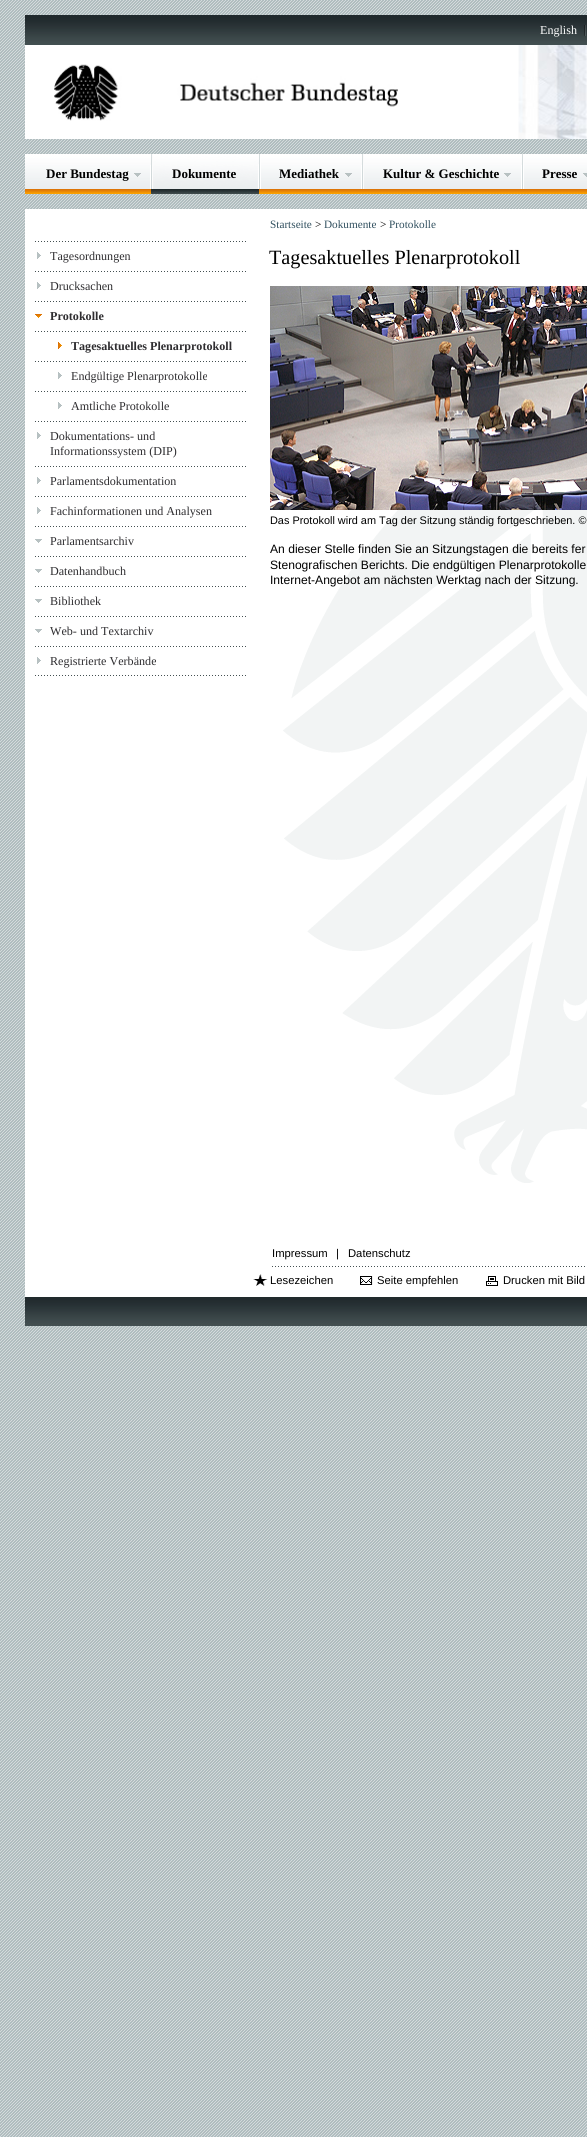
import math
import cairocffi as cairo

surface = cairo.ImageSurface(cairo.FORMAT_RGB24, 587, 2137)
cr = cairo.Context(surface)
options = cairo.FontOptions()
options.set_hint_metrics(cairo.HINT_METRICS_OFF)
options.set_hint_style(cairo.HINT_STYLE_NONE)
cr.set_font_options(options)
cr.set_miter_limit(4)


def use_color(code):
    cr.set_source_rgb(*(v / 255 for v in bytes.fromhex(code[-6:])))


def picture(path, x, y, w, h):
    cr.save()
    cr.set_source_surface(cairo.ImageSurface.create_from_png(path), x, y)
    cr.rectangle(x, y, w, h)
    cr.fill()
    cr.restore()


use_color("#ffffff")
cr.paint()
picture("img1.png", 0, 0, 587, 2137)
picture("img2.png", 25, 15, 562, 30)
cr.select_font_face("Liberation Serif")
cr.set_font_size(12.1)
use_color("#ffffff")
cr.move_to(540, 34)
cr.show_text("English")
picture("img3.png", 584, 25, 2, 11)
cr.rectangle(25, 45, 493, 94)
cr.fill()
picture("img4.png", 54, 64, 344, 57)
picture("img5.png", 518, 45, 69, 94)
picture("img6.png", 25, 154, 562, 40)
cr.rectangle(150, 165, 1, 24)
cr.fill()
picture("img7.png", 134, 173, 7, 4)
cr.select_font_face("Liberation Serif", cairo.FONT_SLANT_NORMAL, cairo.FONT_WEIGHT_BOLD)
cr.set_font_size(13)
use_color("#000000")
cr.move_to(46, 178)
cr.show_text("Der Bundestag")
picture("img8.png", 151, 154, 108, 40)
use_color("#ffffff")
cr.rectangle(258, 164, 1, 25)
cr.fill()
use_color("#000000")
cr.move_to(172, 178)
cr.show_text("Dokumente")
picture("img9.png", 259, 154, 2, 35)
use_color("#ffffff")
cr.rectangle(361, 165, 1, 24)
cr.fill()
picture("img7.png", 345, 173, 7, 4)
use_color("#000000")
cr.move_to(279, 178)
cr.show_text("Mediathek")
picture("img10.png", 362, 154, 2, 35)
use_color("#ffffff")
cr.rectangle(521, 165, 1, 24)
cr.fill()
picture("img7.png", 504, 173, 7, 4)
use_color("#000000")
cr.move_to(383, 178)
cr.show_text("Kultur & Geschichte")
picture("img9.png", 522, 154, 2, 35)
picture("img11.png", 583, 173, 4, 4)
cr.move_to(542, 178)
cr.show_text("Presse")
use_color("#ffffff")
cr.rectangle(25, 209, 562, 19)
cr.fill()
cr.rectangle(25, 228, 562, 988)
cr.fill()
picture("img12.png", 35, 675, 211, 1)
picture("img12.png", 35, 241, 211, 1)
picture("img13.png", 37, 252, 4, 7)
cr.select_font_face("Liberation Serif")
cr.set_font_size(12.1)
use_color("#2e2d30")
cr.move_to(50, 260)
cr.show_text("Tagesordnungen")
picture("img12.png", 35, 271, 211, 1)
picture("img13.png", 37, 282, 4, 7)
cr.move_to(50, 290)
cr.show_text("Drucksachen")
picture("img12.png", 35, 301, 211, 1)
picture("img14.png", 35, 314, 7, 4)
cr.select_font_face("Liberation Serif", cairo.FONT_SLANT_NORMAL, cairo.FONT_WEIGHT_BOLD)
cr.move_to(50, 320)
cr.show_text("Protokolle")
picture("img12.png", 35, 331, 211, 1)
picture("img15.png", 58, 342, 4, 7)
cr.move_to(71, 350)
cr.show_text("Tagesaktuelles Plenarprotokoll")
picture("img12.png", 35, 361, 211, 1)
picture("img13.png", 58, 372, 4, 7)
cr.select_font_face("Liberation Serif")
cr.move_to(71, 380)
cr.show_text("Endgültige Plenarprotokolle")
picture("img12.png", 35, 391, 211, 1)
picture("img13.png", 58, 402, 4, 7)
cr.move_to(71, 410)
cr.show_text("Amtliche Protokolle")
picture("img12.png", 35, 421, 211, 1)
picture("img13.png", 37, 432, 4, 7)
cr.move_to(50, 440)
cr.show_text("Dokumentations- und")
cr.move_to(50, 455)
cr.show_text("Informationssystem (DIP)")
picture("img12.png", 35, 466, 211, 1)
picture("img13.png", 37, 477, 4, 7)
cr.move_to(50, 485)
cr.show_text("Parlamentsdokumentation")
picture("img12.png", 35, 496, 211, 1)
picture("img13.png", 37, 507, 4, 7)
cr.move_to(50, 515)
cr.show_text("Fachinformationen und Analysen")
picture("img12.png", 35, 526, 211, 1)
picture("img16.png", 35, 539, 7, 4)
cr.move_to(50, 545)
cr.show_text("Parlamentsarchiv")
picture("img12.png", 35, 556, 211, 1)
picture("img16.png", 35, 569, 7, 4)
cr.move_to(50, 575)
cr.show_text("Datenhandbuch")
picture("img12.png", 35, 586, 211, 1)
picture("img16.png", 35, 599, 7, 4)
cr.move_to(50, 605)
cr.show_text("Bibliothek")
picture("img12.png", 35, 616, 211, 1)
picture("img16.png", 35, 629, 7, 4)
cr.move_to(50, 635)
cr.show_text("Web- und Textarchiv")
picture("img12.png", 35, 646, 211, 1)
picture("img13.png", 37, 657, 4, 7)
cr.move_to(50, 665)
cr.show_text("Registrierte Verbände")
cr.set_font_size(11.25)
use_color("#31505f")
cr.move_to(270, 228)
cr.show_text("Startseite")
use_color("#000000")
cr.move_to(315, 228)
cr.show_text(">")
use_color("#31505f")
cr.move_to(324, 228)
cr.show_text("Dokumente")
use_color("#000000")
cr.move_to(380, 228)
cr.show_text(">")
use_color("#31505f")
cr.move_to(389, 228)
cr.show_text("Protokolle")
picture("img17.png", 283, 510, 304, 673)
cr.set_font_size(20.25)
use_color("#000000")
cr.move_to(269, 264)
cr.show_text("Tagesaktuelles Plenarprotokoll")
picture("img18.png", 270, 286, 317, 224)
cr.select_font_face("Liberation Sans")
cr.set_font_size(10.9)
cr.move_to(270, 524)
cr.show_text("Das Protokoll wird am Tag der Sitzung ständig fortgeschrieben. ©")
cr.set_font_size(12.1)
cr.move_to(270, 553)
cr.show_text("An dieser Stelle finden Sie an Sitzungstagen die bereits fer")
cr.move_to(270, 569)
cr.show_text("Stenografischen Berichts. Die endgültigen Plenarprotokolle")
cr.move_to(270, 584)
cr.show_text("Internet-Angebot am nächsten Werktag nach der Sitzung.")
use_color("#ffffff")
cr.rectangle(25, 1216, 562, 81)
cr.fill()
cr.set_font_size(11.25)
use_color("#000000")
cr.move_to(272, 1257)
cr.show_text("Impressum")
cr.move_to(336, 1257)
cr.show_text("|")
cr.move_to(348, 1257)
cr.show_text("Datenschutz")
picture("img19.png", 272, 1266, 313, 1)
picture("img20.png", 253, 1274, 15, 12)
cr.move_to(270, 1284)
cr.show_text("Lesezeichen")
picture("img21.png", 360, 1276, 13, 9)
cr.move_to(377, 1284)
cr.show_text("Seite empfehlen")
picture("img22.png", 486, 1276, 12, 10)
cr.move_to(503, 1284)
cr.show_text("Drucken mit Bild")
picture("img23.png", 25, 1297, 562, 29)
surface.write_to_png("result.png")
